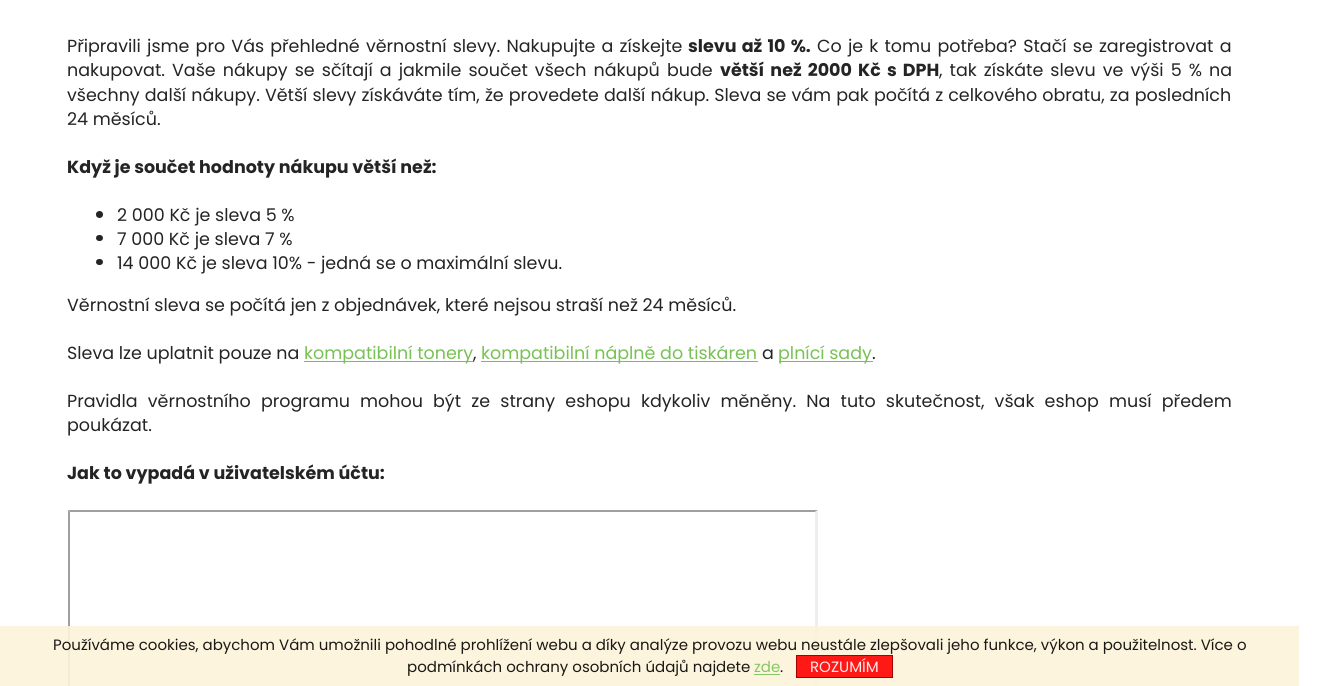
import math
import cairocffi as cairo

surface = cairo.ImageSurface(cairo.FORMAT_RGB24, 1317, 686)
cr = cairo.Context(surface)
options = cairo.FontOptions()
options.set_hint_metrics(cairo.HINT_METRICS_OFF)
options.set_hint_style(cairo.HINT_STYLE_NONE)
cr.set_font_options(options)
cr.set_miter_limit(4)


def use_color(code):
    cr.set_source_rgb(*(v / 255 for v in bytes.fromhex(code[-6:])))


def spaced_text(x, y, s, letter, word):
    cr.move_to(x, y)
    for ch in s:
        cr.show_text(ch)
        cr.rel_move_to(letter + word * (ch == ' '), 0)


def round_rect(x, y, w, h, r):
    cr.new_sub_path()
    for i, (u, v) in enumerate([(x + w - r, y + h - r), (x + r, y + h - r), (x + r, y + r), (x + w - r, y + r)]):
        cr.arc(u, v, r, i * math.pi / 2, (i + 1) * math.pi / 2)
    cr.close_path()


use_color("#ffffff")
cr.paint()
cr.select_font_face("Poppins")
cr.set_font_size(17.5)
use_color("#242424")
spaced_text(67, 52, "Připravili jsme pro Vás přehledné věrnostní slevy. Nakupujte a získejte", 0, 1.5)
cr.select_font_face("Poppins", cairo.FONT_SLANT_NORMAL, cairo.FONT_WEIGHT_BOLD)
spaced_text(688, 52, "slevu až 10 %.", 0, 1.5)
cr.select_font_face("Poppins")
spaced_text(817, 52, "Co je k tomu potřeba? Stačí se zaregistrovat a", 0, 1.5)
spaced_text(67, 76, "nakupovat. Vaše nákupy se sčítají a jakmile součet všech nákupů bude", 0, 2.4)
cr.select_font_face("Poppins", cairo.FONT_SLANT_NORMAL, cairo.FONT_WEIGHT_BOLD)
spaced_text(720, 76, "větší než 2000 Kč s DPH", 0, 2.4)
cr.select_font_face("Poppins")
spaced_text(939, 76, ", tak získáte slevu ve výši 5 % na", 0, 2.4)
spaced_text(67, 101, "všechny další nákupy. Větší slevy získáváte tím, že provedete další nákup. Sleva se vám pak počítá z celkového obratu, za posledních", 0, 0.4)
cr.move_to(67, 125)
cr.show_text("24 měsíců.")
cr.select_font_face("Poppins", cairo.FONT_SLANT_NORMAL, cairo.FONT_WEIGHT_BOLD)
cr.move_to(67, 173)
cr.show_text("Když je součet hodnoty nákupu větší než:")
cr.new_path()
cr.arc(99.5, 214.5, 3.5, 0, 2 * math.pi)
cr.fill()
cr.select_font_face("Poppins")
cr.move_to(117, 221)
cr.show_text("2 000 Kč je sleva 5 %")
round_rect(96, 235, 7, 6, 3)
cr.fill()
cr.move_to(117, 245)
cr.show_text("7 000 Kč je sleva 7 %")
round_rect(96, 259, 7, 6, 3)
cr.fill()
cr.move_to(117, 269)
cr.show_text("14 000 Kč je sleva 10% - jedná se o maximální slevu.")
cr.move_to(67, 311)
cr.show_text("Věrnostní sleva se počítá jen z objednávek, které nejsou straší než 24 měsíců.")
cr.move_to(67, 359)
cr.show_text("Sleva lze uplatnit pouze na")
use_color("#78c154")
cr.rectangle(304, 361, 170, 1)
cr.fill()
cr.move_to(304, 359)
cr.show_text("kompatibilní tonery")
use_color("#242424")
cr.move_to(473, 359)
cr.show_text(",")
use_color("#78c154")
cr.rectangle(481, 361, 277, 1)
cr.fill()
cr.move_to(481, 359)
cr.show_text("kompatibilní náplně do tiskáren")
use_color("#242424")
cr.move_to(762, 359)
cr.show_text("a")
use_color("#78c154")
cr.rectangle(779, 361, 94, 1)
cr.fill()
cr.move_to(778, 359)
cr.show_text("plnící sady")
use_color("#242424")
cr.move_to(872, 359)
cr.show_text(".")
spaced_text(67, 407, "Pravidla věrnostního programu mohou být ze strany eshopu kdykoliv měněny. Na tuto skutečnost, však eshop musí předem", 0, 5.5)
cr.move_to(67, 431)
cr.show_text("poukázat.")
cr.select_font_face("Poppins", cairo.FONT_SLANT_NORMAL, cairo.FONT_WEIGHT_BOLD)
cr.move_to(67, 479)
cr.show_text("Jak to vypadá v uživatelském účtu:")
use_color("#9f9f9f")
cr.new_path()
cr.move_to(68, 510)
cr.line_to(818, 510)
cr.line_to(815, 512)
cr.line_to(70, 512)
cr.close_path()
cr.fill()
cr.new_path()
cr.move_to(68, 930)
cr.line_to(68, 510)
cr.line_to(70, 512)
cr.line_to(70, 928)
cr.close_path()
cr.fill()
use_color("#eeeeee")
cr.new_path()
cr.move_to(818, 510)
cr.line_to(818, 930)
cr.line_to(815, 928)
cr.line_to(815, 512)
cr.close_path()
cr.fill()
cr.set_source_rgba(0.992, 0.953, 0.855, 0.9)
cr.rectangle(0, 626, 1299, 60)
cr.fill()
cr.select_font_face("Poppins")
cr.set_font_size(15)
use_color("#191816")
cr.move_to(53, 650)
cr.show_text("Používáme cookies, abychom Vám umožnili pohodlné prohlížení webu a díky analýze provozu webu neustále zlepšovali jeho funkce, výkon a použitelnost. Více o")
cr.move_to(407, 672)
cr.show_text("podmínkách ochrany osobních údajů najdete")
use_color("#86c765")
cr.move_to(754, 672)
cr.show_text("zde")
cr.rectangle(754, 674, 26, 1)
cr.fill()
use_color("#191816")
cr.move_to(780, 672)
cr.show_text(".")
use_color("#fe1816")
cr.rectangle(796.5, 655.5, 96, 22)
cr.fill_preserve()
use_color("#a40202")
cr.set_line_width(1)
cr.stroke()
use_color("#ffe8e8")
cr.move_to(810, 672)
cr.show_text("ROZUMÍM")
surface.write_to_png("result.png")
